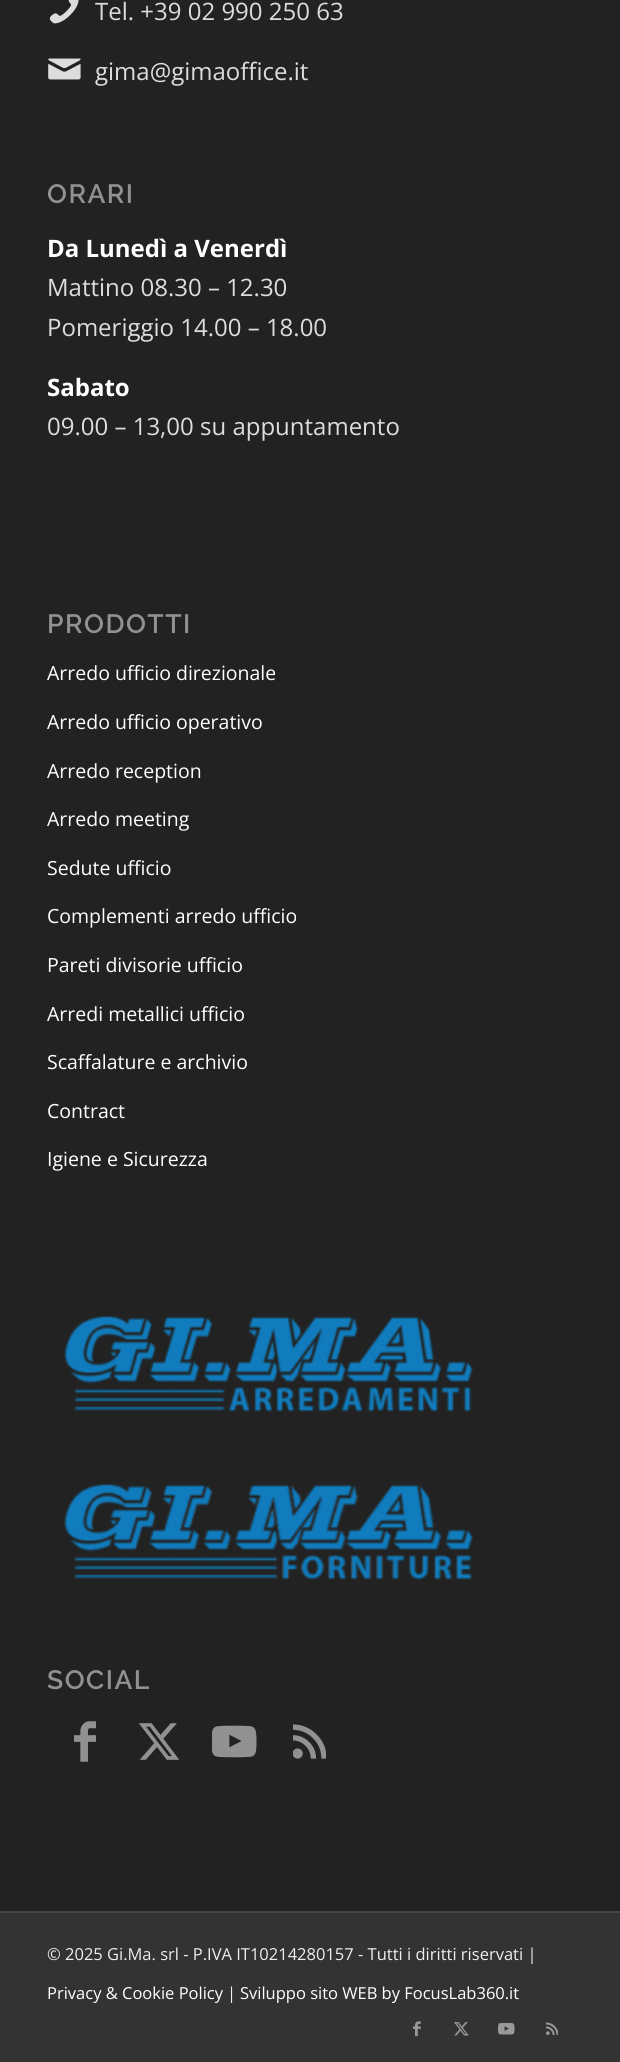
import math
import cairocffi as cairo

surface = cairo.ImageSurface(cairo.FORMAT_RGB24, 620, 2062)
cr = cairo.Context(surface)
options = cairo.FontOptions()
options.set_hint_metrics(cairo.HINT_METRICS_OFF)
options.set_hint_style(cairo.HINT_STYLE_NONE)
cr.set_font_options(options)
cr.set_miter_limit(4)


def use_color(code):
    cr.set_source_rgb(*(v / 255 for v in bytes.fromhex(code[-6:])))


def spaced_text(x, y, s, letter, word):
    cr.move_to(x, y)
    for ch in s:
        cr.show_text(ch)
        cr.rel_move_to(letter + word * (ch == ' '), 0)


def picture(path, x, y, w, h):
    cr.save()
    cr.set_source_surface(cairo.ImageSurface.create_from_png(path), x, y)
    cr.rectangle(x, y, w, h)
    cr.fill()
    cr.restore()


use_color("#222222")
cr.paint()
picture("img1.png", 49, 0, 30, 24)
cr.select_font_face("Open Sans")
cr.set_font_size(24)
use_color("#dddddd")
cr.move_to(95, 20)
cr.show_text("Tel. +39 02 990 250 63")
picture("img2.png", 48, 58, 33, 22)
cr.move_to(95, 80)
cr.show_text("gima@gimaoffice.it")
cr.select_font_face("Raleway SemiBold")
cr.set_font_size(26.5)
use_color("#919191")
spaced_text(47, 203, "ORARI", 1.5, 0)
cr.select_font_face("Open Sans", cairo.FONT_SLANT_NORMAL, cairo.FONT_WEIGHT_BOLD)
cr.set_font_size(24)
use_color("#ffffff")
cr.move_to(47, 257)
cr.show_text("Da Lunedì a Venerdì")
cr.select_font_face("Open Sans")
use_color("#dddddd")
cr.move_to(47, 296)
cr.show_text("Mattino 08.30 – 12.30")
cr.move_to(47, 336)
cr.show_text("Pomeriggio 14.00 – 18.00")
cr.select_font_face("Open Sans", cairo.FONT_SLANT_NORMAL, cairo.FONT_WEIGHT_BOLD)
use_color("#ffffff")
cr.move_to(47, 396)
cr.show_text("Sabato")
cr.select_font_face("Open Sans")
use_color("#dddddd")
cr.move_to(47, 435)
cr.show_text("09.00 – 13,00 su appuntamento")
cr.select_font_face("Raleway SemiBold")
cr.set_font_size(26.5)
use_color("#919191")
spaced_text(47, 633, "PRODOTTI", 1.5, 0)
cr.select_font_face("Open Sans")
cr.set_font_size(19.5)
use_color("#ffffff")
cr.move_to(47, 680)
cr.show_text("Arredo ufficio direzionale")
cr.move_to(47, 729)
cr.show_text("Arredo ufficio operativo")
cr.move_to(47, 778)
cr.show_text("Arredo reception")
cr.move_to(47, 826)
cr.show_text("Arredo meeting")
cr.move_to(47, 875)
cr.show_text("Sedute ufficio")
cr.move_to(47, 923)
cr.show_text("Complementi arredo ufficio")
cr.move_to(47, 972)
cr.show_text("Pareti divisorie ufficio")
cr.move_to(47, 1021)
cr.show_text("Arredi metallici ufficio")
cr.move_to(47, 1069)
cr.show_text("Scaffalature e archivio")
cr.move_to(47, 1118)
cr.show_text("Contract")
cr.move_to(47, 1166)
cr.show_text("Igiene e Sicurezza")
picture("img3.png", 64, 1315, 409, 97)
picture("img4.png", 64, 1483, 409, 97)
cr.select_font_face("Raleway SemiBold")
cr.set_font_size(26.5)
use_color("#919191")
spaced_text(47, 1689, "SOCIAL", 1.5, 0)
picture("img5.png", 74, 1721, 22, 41)
picture("img6.png", 139, 1723, 41, 37)
picture("img7.png", 212, 1725, 45, 33)
picture("img8.png", 293, 1724, 33, 35)
use_color("#333333")
cr.rectangle(0, 1913, 620, 149)
cr.fill()
use_color("#444444")
cr.rectangle(0, 1911, 620, 2)
cr.fill()
cr.select_font_face("Open Sans")
cr.set_font_size(16.5)
use_color("#eeeeee")
cr.move_to(47, 1960)
cr.show_text("© 2025 Gi.Ma. srl - P.IVA IT10214280157 - Tutti i diritti riservati |")
use_color("#ffffff")
cr.move_to(47, 1999)
cr.show_text("Privacy & Cookie Policy")
use_color("#eeeeee")
cr.move_to(227, 1999)
cr.show_text("|")
use_color("#ffffff")
cr.move_to(240, 1999)
cr.show_text("Sviluppo sito WEB by FocusLab360.it")
picture("img9.png", 413, 2021, 8, 16)
picture("img10.png", 454, 2022, 15, 14)
picture("img11.png", 498, 2022, 17, 13)
picture("img12.png", 546, 2022, 12, 13)
surface.write_to_png("result.png")
